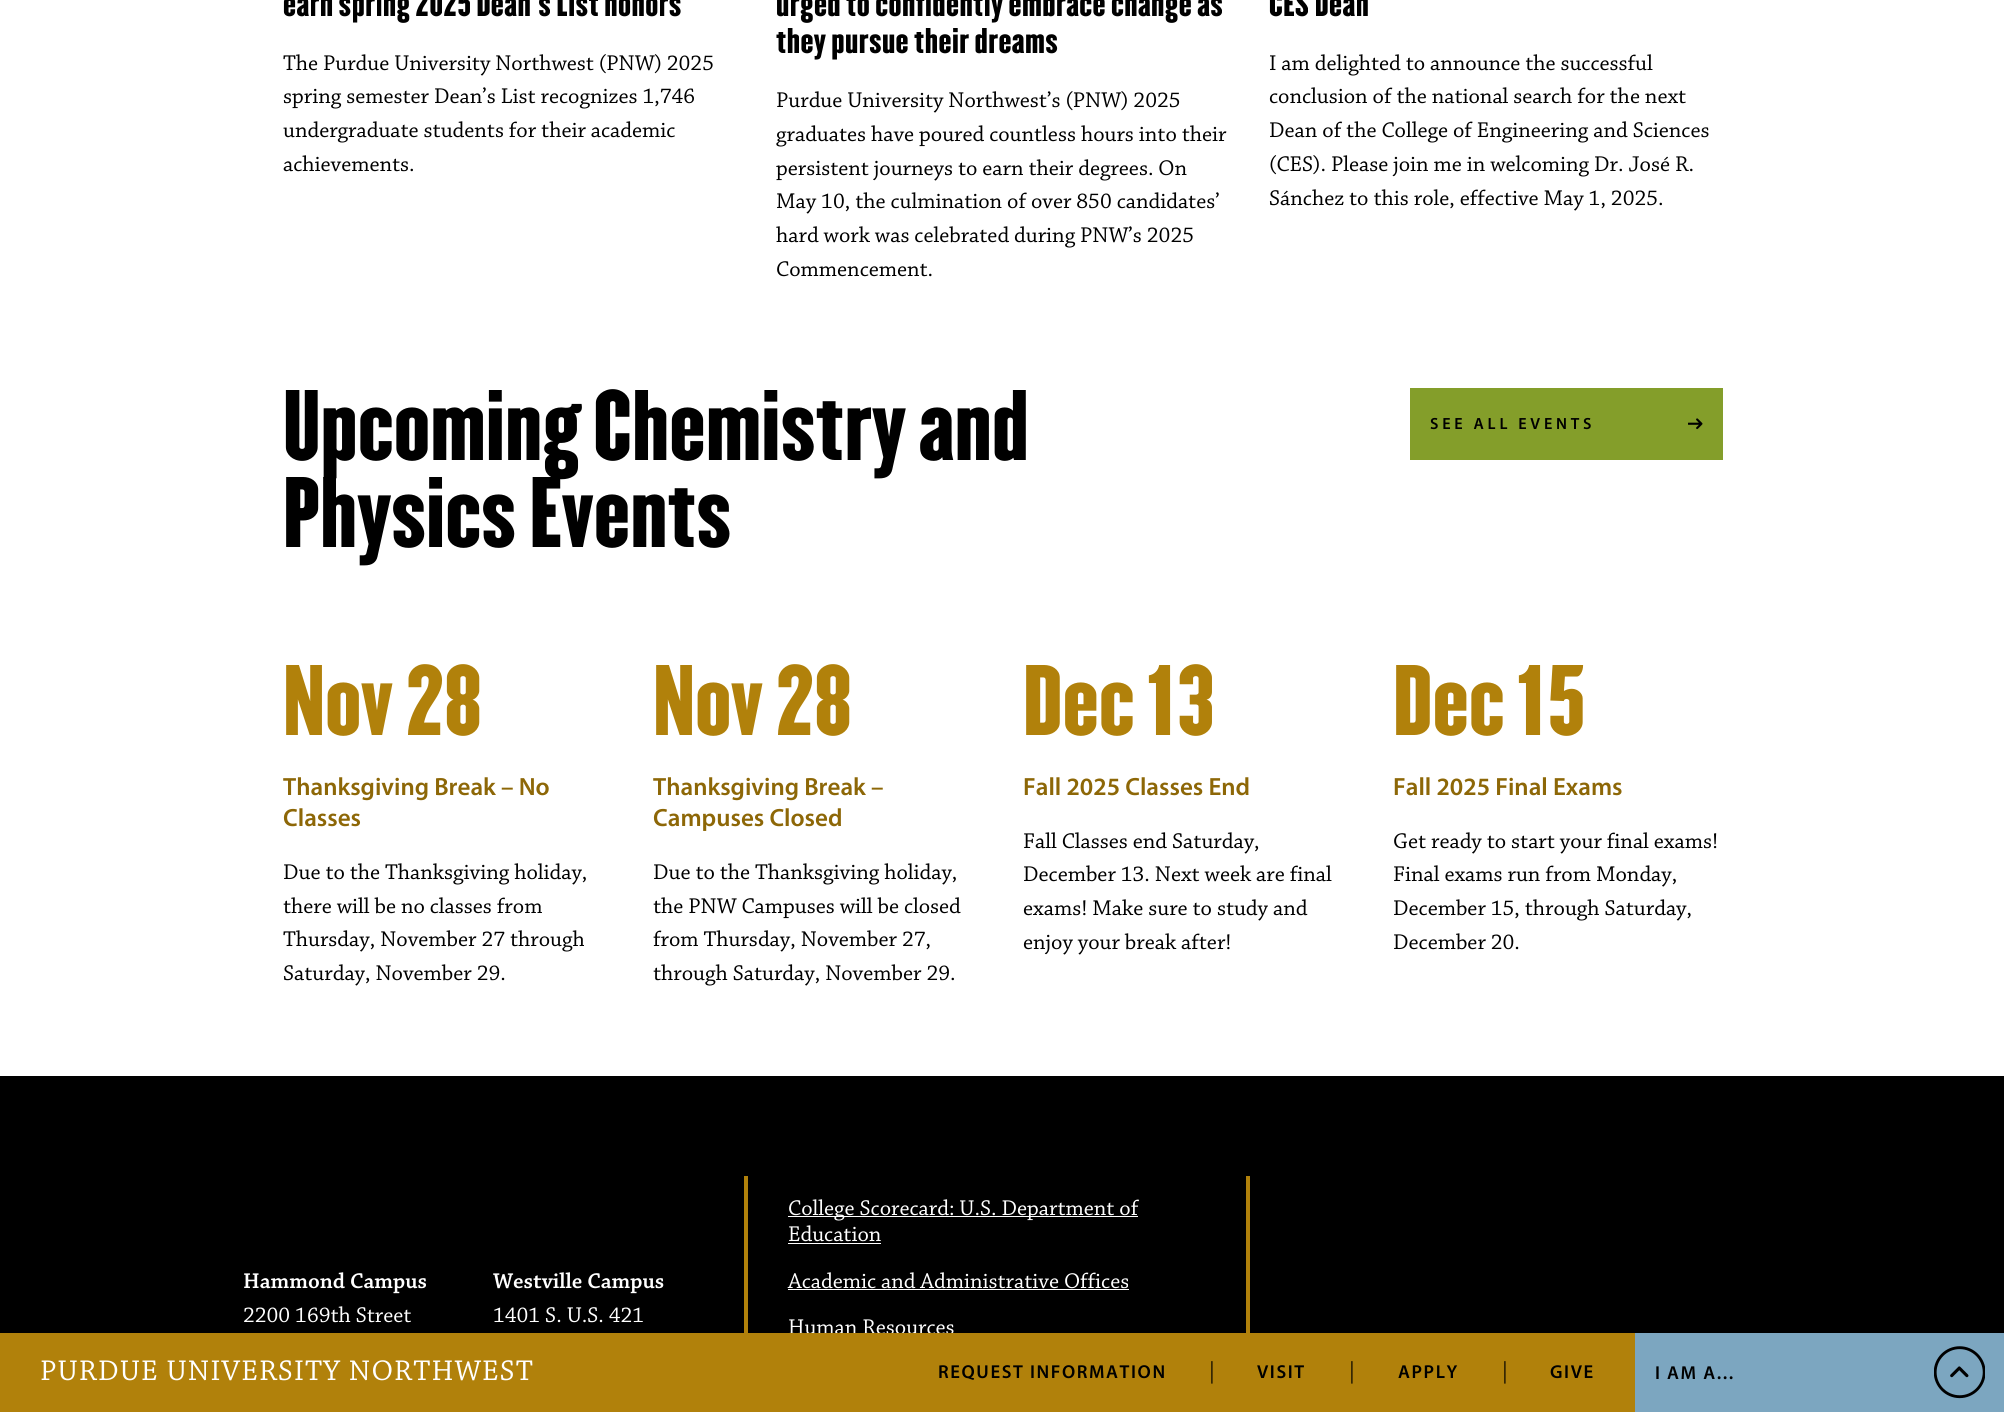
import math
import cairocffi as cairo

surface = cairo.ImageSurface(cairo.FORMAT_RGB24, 2004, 1412)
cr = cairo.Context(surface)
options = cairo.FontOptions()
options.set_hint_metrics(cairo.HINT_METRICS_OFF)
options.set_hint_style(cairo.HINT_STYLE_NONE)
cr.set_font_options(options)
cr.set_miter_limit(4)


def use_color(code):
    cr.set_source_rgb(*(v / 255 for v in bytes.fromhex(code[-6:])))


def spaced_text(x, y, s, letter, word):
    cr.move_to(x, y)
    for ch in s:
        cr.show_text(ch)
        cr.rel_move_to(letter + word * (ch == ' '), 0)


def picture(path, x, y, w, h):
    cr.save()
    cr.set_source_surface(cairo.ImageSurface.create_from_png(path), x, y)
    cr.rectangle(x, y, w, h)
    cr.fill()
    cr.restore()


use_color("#ffffff")
cr.paint()
cr.select_font_face("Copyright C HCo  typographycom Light")
cr.set_font_size(31.25)
use_color("#000000")
spaced_text(283, 16, "earn spring 2025 Dean’s List honors", 0.4, 0)
cr.select_font_face("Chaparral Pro")
cr.set_font_size(22.5)
cr.move_to(283, 70)
cr.show_text("The Purdue University Northwest (PNW) 2025")
cr.move_to(283, 103)
cr.show_text("spring semester Dean’s List recognizes 1,746")
cr.move_to(283, 137)
cr.show_text("undergraduate students for their academic")
cr.move_to(283, 171)
cr.show_text("achievements.")
cr.select_font_face("Copyright C HCo  typographycom Light")
cr.set_font_size(31.25)
spaced_text(776, 16, "urged to confidently embrace change as", 0.4, 0)
spaced_text(776, 53, "they pursue their dreams", 0.4, 0)
cr.select_font_face("Chaparral Pro")
cr.set_font_size(22.5)
cr.move_to(776, 107)
cr.show_text("Purdue University Northwest’s (PNW) 2025")
cr.move_to(776, 141)
cr.show_text("graduates have poured countless hours into their")
cr.move_to(776, 175)
cr.show_text("persistent journeys to earn their degrees. On")
cr.move_to(776, 208)
cr.show_text("May 10, the culmination of over 850 candidates’")
cr.move_to(776, 242)
cr.show_text("hard work was celebrated during PNW’s 2025")
cr.move_to(776, 276)
cr.show_text("Commencement.")
cr.select_font_face("Copyright C HCo  typographycom Light")
cr.set_font_size(31.25)
spaced_text(1269, 16, "CES Dean", 0.4, 0)
cr.select_font_face("Chaparral Pro")
cr.set_font_size(22.5)
cr.move_to(1269, 70)
cr.show_text("I am delighted to announce the successful")
cr.move_to(1269, 103)
cr.show_text("conclusion of the national search for the next")
cr.move_to(1269, 137)
cr.show_text("Dean of the College of Engineering and Sciences")
cr.move_to(1269, 171)
cr.show_text("(CES). Please join me in welcoming Dr. José R.")
cr.move_to(1269, 205)
cr.show_text("Sánchez to this role, effective May 1, 2025.")
cr.select_font_face("Copyright C HCo  typographycom Light")
cr.set_font_size(87.5)
cr.move_to(283, 460)
cr.show_text("Upcoming Chemistry and")
cr.move_to(283, 547)
cr.show_text("Physics Events")
use_color("#849e2a")
cr.rectangle(1410, 388, 313, 72)
cr.fill()
cr.select_font_face("Myriad SemiBold")
cr.set_font_size(16.25)
use_color("#000000")
spaced_text(1430, 429, "SEE ALL EVENTS", 3.75, 0)
picture("img1.png", 1688, 418, 15, 12)
cr.select_font_face("Copyright C HCo  typographycom Light")
cr.set_font_size(87.5)
use_color("#b1810b")
cr.move_to(283, 735)
cr.show_text("Nov 28")
cr.select_font_face("Myriad SemiBold")
cr.set_font_size(25)
use_color("#8d6707")
cr.move_to(283, 795)
cr.show_text("Thanksgiving Break – No")
cr.move_to(283, 826)
cr.show_text("Classes")
cr.select_font_face("Chaparral Pro")
cr.set_font_size(22.5)
use_color("#000000")
cr.move_to(283, 879)
cr.show_text("Due to the Thanksgiving holiday,")
cr.move_to(283, 913)
cr.show_text("there will be no classes from")
cr.move_to(283, 946)
cr.show_text("Thursday, November 27 through")
cr.move_to(283, 980)
cr.show_text("Saturday, November 29.")
cr.select_font_face("Copyright C HCo  typographycom Light")
cr.set_font_size(87.5)
use_color("#b1810b")
cr.move_to(653, 735)
cr.show_text("Nov 28")
cr.select_font_face("Myriad SemiBold")
cr.set_font_size(25)
use_color("#8d6707")
cr.move_to(653, 795)
cr.show_text("Thanksgiving Break –")
cr.move_to(653, 826)
cr.show_text("Campuses Closed")
cr.select_font_face("Chaparral Pro")
cr.set_font_size(22.5)
use_color("#000000")
cr.move_to(653, 879)
cr.show_text("Due to the Thanksgiving holiday,")
cr.move_to(653, 913)
cr.show_text("the PNW Campuses will be closed")
cr.move_to(653, 946)
cr.show_text("from Thursday, November 27,")
cr.move_to(653, 980)
cr.show_text("through Saturday, November 29.")
cr.select_font_face("Copyright C HCo  typographycom Light")
cr.set_font_size(87.5)
use_color("#b1810b")
cr.move_to(1023, 735)
cr.show_text("Dec 13")
cr.select_font_face("Myriad SemiBold")
cr.set_font_size(25)
use_color("#8d6707")
cr.move_to(1023, 795)
cr.show_text("Fall 2025 Classes End")
cr.select_font_face("Chaparral Pro")
cr.set_font_size(22.5)
use_color("#000000")
cr.move_to(1023, 848)
cr.show_text("Fall Classes end Saturday,")
cr.move_to(1023, 881)
cr.show_text("December 13. Next week are final")
cr.move_to(1023, 915)
cr.show_text("exams! Make sure to study and")
cr.move_to(1023, 949)
cr.show_text("enjoy your break after!")
cr.select_font_face("Copyright C HCo  typographycom Light")
cr.set_font_size(87.5)
use_color("#b1810b")
cr.move_to(1393, 735)
cr.show_text("Dec 15")
cr.select_font_face("Myriad SemiBold")
cr.set_font_size(25)
use_color("#8d6707")
cr.move_to(1393, 795)
cr.show_text("Fall 2025 Final Exams")
cr.select_font_face("Chaparral Pro")
cr.set_font_size(22.5)
use_color("#000000")
cr.move_to(1393, 848)
cr.show_text("Get ready to start your final exams!")
cr.move_to(1393, 881)
cr.show_text("Final exams run from Monday,")
cr.move_to(1393, 915)
cr.show_text("December 15, through Saturday,")
cr.move_to(1393, 949)
cr.show_text("December 20.")
cr.rectangle(0, 1076, 2004, 257)
cr.fill()
cr.select_font_face("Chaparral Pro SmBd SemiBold")
use_color("#ffffff")
cr.move_to(243, 1288)
cr.show_text("Hammond Campus")
cr.select_font_face("Chaparral Pro")
cr.move_to(243, 1322)
cr.show_text("2200 169th Street")
cr.select_font_face("Chaparral Pro SmBd SemiBold")
cr.move_to(493, 1288)
cr.show_text("Westville Campus")
cr.select_font_face("Chaparral Pro")
cr.move_to(493, 1322)
cr.show_text("1401 S. U.S. 421")
use_color("#b1810b")
cr.rectangle(744, 1176, 4, 157)
cr.fill()
use_color("#ffffff")
cr.rectangle(788, 1216, 350, 1)
cr.fill()
cr.move_to(788, 1215)
cr.show_text("College Scorecard: U.S. Department of")
cr.move_to(788, 1241)
cr.show_text("Education")
cr.rectangle(788, 1243, 93, 1)
cr.fill()
cr.move_to(788, 1288)
cr.show_text("Academic and Administrative Offices")
cr.rectangle(788, 1289, 341, 1)
cr.fill()
cr.move_to(788, 1334)
cr.show_text("Human Resources")
use_color("#b1810b")
cr.rectangle(1246, 1176, 4, 157)
cr.fill()
cr.rectangle(0, 1333, 1635, 79)
cr.fill()
cr.set_font_size(30)
use_color("#ffffff")
spaced_text(40, 1380, "PURDUE UNIVERSITY NORTHWEST", 1.15, 0)
cr.select_font_face("Myriad SemiBold")
cr.set_font_size(18.75)
use_color("#000000")
spaced_text(938, 1378, "REQUEST INFORMATION", 1.6, 0)
cr.select_font_face("Chaparral Pro")
cr.set_font_size(22.5)
cr.move_to(1206, 1378)
cr.show_text("|")
cr.select_font_face("Myriad SemiBold")
cr.set_font_size(18.75)
spaced_text(1257, 1378, "VISIT", 1.6, 0)
cr.select_font_face("Chaparral Pro")
cr.set_font_size(22.5)
cr.move_to(1346, 1378)
cr.show_text("|")
cr.select_font_face("Myriad SemiBold")
cr.set_font_size(18.75)
spaced_text(1398, 1378, "APPLY", 1.6, 0)
cr.select_font_face("Chaparral Pro")
cr.set_font_size(22.5)
cr.move_to(1499, 1378)
cr.show_text("|")
cr.select_font_face("Myriad SemiBold")
cr.set_font_size(18.75)
spaced_text(1550, 1378, "GIVE", 1.6, 0)
use_color("#7ca6c0")
cr.rectangle(1635, 1333, 369, 79)
cr.fill()
use_color("#000000")
spaced_text(1655, 1379, "I AM A...", 1.6, 0)
picture("img2.png", 1934, 1346, 51, 53)
surface.write_to_png("result.png")
